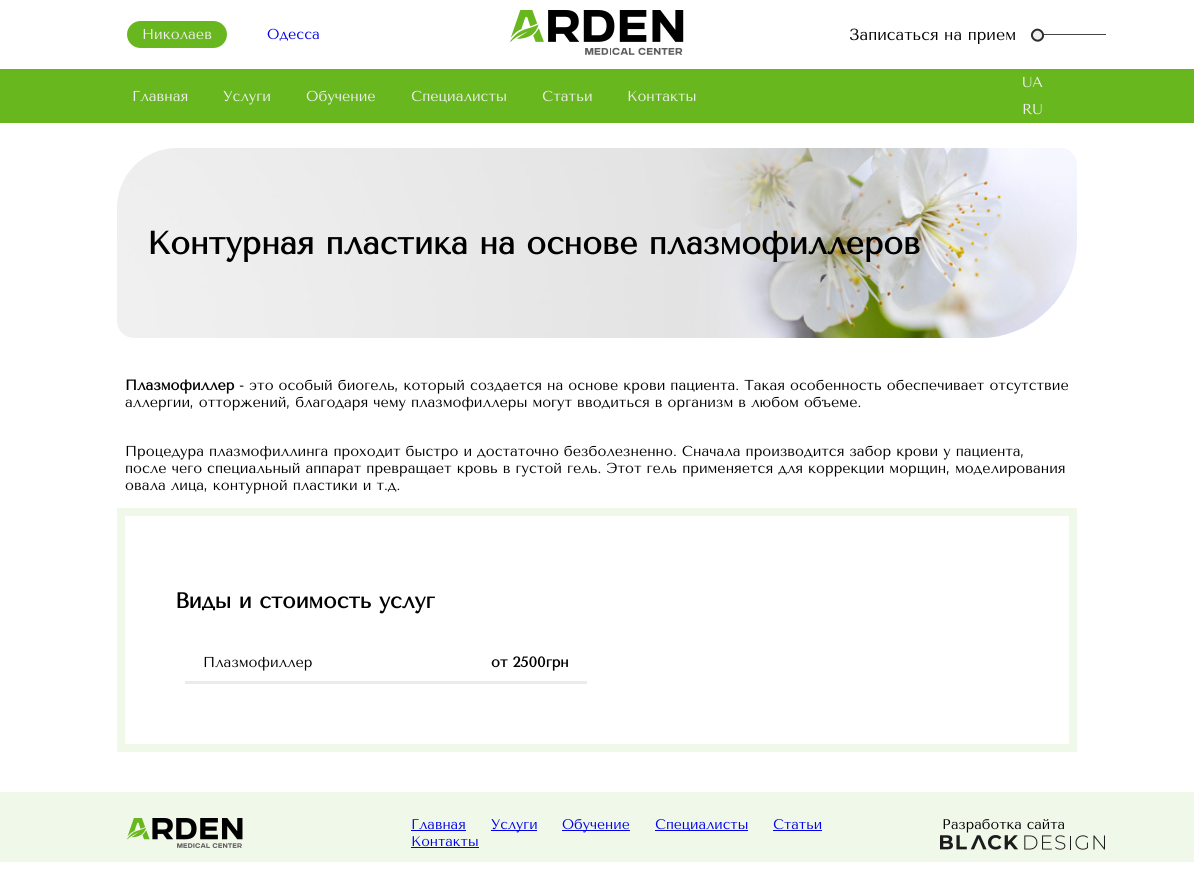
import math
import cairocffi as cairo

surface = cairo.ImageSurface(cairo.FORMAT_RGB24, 1194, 882)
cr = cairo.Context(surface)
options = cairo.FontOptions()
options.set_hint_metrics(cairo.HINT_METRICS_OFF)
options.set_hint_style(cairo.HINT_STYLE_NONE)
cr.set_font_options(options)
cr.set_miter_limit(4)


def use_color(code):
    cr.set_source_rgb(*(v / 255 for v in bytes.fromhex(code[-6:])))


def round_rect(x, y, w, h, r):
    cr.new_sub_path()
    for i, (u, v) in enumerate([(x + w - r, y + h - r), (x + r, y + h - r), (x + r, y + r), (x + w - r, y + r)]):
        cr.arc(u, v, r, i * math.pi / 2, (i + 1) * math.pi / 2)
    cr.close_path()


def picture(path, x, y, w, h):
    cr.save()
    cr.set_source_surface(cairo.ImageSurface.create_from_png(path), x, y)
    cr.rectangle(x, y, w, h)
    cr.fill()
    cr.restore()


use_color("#ffffff")
cr.paint()
use_color("#69b71f")
round_rect(127, 21, 100, 27, 13.5)
cr.fill()
cr.select_font_face("Tenor Sans")
cr.set_font_size(14.4)
use_color("#efefef")
cr.move_to(142, 39)
cr.show_text("Николаев")
use_color("#0000ee")
cr.move_to(267, 39)
cr.show_text("Одесса")
picture("img1.png", 510, 10, 174, 45)
cr.set_font_size(16)
use_color("#000000")
cr.move_to(849, 40)
cr.show_text("Записаться на прием")
use_color("#444444")
cr.rectangle(1036, 34, 70, 1)
cr.fill()
use_color("#efefef")
cr.new_path()
cr.move_to(1033, 30.5)
cr.curve_to(1039, 24.5, 1048, 33.5, 1042, 40)
cr.curve_to(1036, 46, 1027, 36.5, 1033, 30.5)
cr.close_path()
cr.fill()
cr.new_path()
cr.move_to(1033.5, 31.5)
cr.curve_to(1038.5, 26, 1046.5, 34, 1041.5, 39)
cr.curve_to(1036.5, 44, 1028.5, 36.5, 1033.5, 31.5)
cr.close_path()
use_color("#2c2c2b")
cr.stroke()
use_color("#69b71f")
cr.rectangle(0, 69, 1194, 54)
cr.fill()
cr.set_font_size(14.4)
use_color("#efefef")
cr.move_to(132, 101)
cr.show_text("Главная")
cr.move_to(223, 101)
cr.show_text("Услуги")
cr.move_to(306, 101)
cr.show_text("Обучение")
cr.move_to(411, 101)
cr.show_text("Специалисты")
cr.move_to(542, 101)
cr.show_text("Статьи")
cr.move_to(627, 101)
cr.show_text("Контакты")
cr.move_to(1022, 87)
cr.show_text("UA")
cr.move_to(1022, 114)
cr.show_text("RU")
picture("img2.png", 117, 148, 960, 190)
cr.select_font_face("Tenor Sans", cairo.FONT_SLANT_NORMAL, cairo.FONT_WEIGHT_BOLD)
cr.set_font_size(32)
use_color("#000000")
cr.move_to(147, 254)
cr.show_text("Контурная пластика на основе плазмофиллеров")
cr.set_font_size(14.4)
cr.move_to(125, 390)
cr.show_text("Плазмофиллер")
cr.select_font_face("Tenor Sans")
cr.move_to(239, 390)
cr.show_text("- это особый биогель, который создается на основе крови пациента. Такая особенность обеспечивает отсутствие")
cr.move_to(125, 407)
cr.show_text("аллергии, отторжений, благодаря чему плазмофиллеры могут вводиться в организм в любом объеме.")
cr.move_to(125, 456)
cr.show_text("Процедура плазмофиллинга проходит быстро и достаточно безболезненно. Сначала производится забор крови у пациента,")
cr.move_to(125, 473)
cr.show_text("после чего специальный аппарат превращает кровь в густой гель. Этот гель применяется для коррекции морщин, моделирования")
cr.move_to(125, 490)
cr.show_text("овала лица, контурной пластики и т.д.")
cr.rectangle(121, 512, 952, 236)
use_color("#f0f8e9")
cr.set_line_width(8)
cr.stroke()
cr.select_font_face("Tenor Sans", cairo.FONT_SLANT_NORMAL, cairo.FONT_WEIGHT_BOLD)
cr.set_font_size(21.6)
use_color("#000000")
cr.move_to(175, 608)
cr.show_text("Виды и стоимость услуг")
use_color("#ebebeb")
cr.rectangle(185, 681, 402, 3)
cr.fill()
cr.select_font_face("Tenor Sans")
cr.set_font_size(14.4)
use_color("#000000")
cr.move_to(203, 667)
cr.show_text("Плазмофиллер")
cr.select_font_face("Tenor Sans", cairo.FONT_SLANT_NORMAL, cairo.FONT_WEIGHT_BOLD)
cr.move_to(491, 667)
cr.show_text("от 2500грн")
use_color("#f0f8e9")
cr.rectangle(0, 792, 1194, 70)
cr.fill()
picture("img3.png", 127, 818, 116, 30)
cr.select_font_face("Tenor Sans")
cr.set_font_size(14)
use_color("#0000ee")
cr.move_to(411, 829)
cr.show_text("Главная")
cr.rectangle(411, 830, 55, 1)
cr.fill()
cr.rectangle(491, 830, 46, 1)
cr.fill()
cr.move_to(491, 829)
cr.show_text("Услуги")
cr.rectangle(562, 830, 68, 1)
cr.fill()
cr.move_to(562, 829)
cr.show_text("Обучение")
cr.rectangle(655, 830, 93, 1)
cr.fill()
cr.move_to(655, 829)
cr.show_text("Специалисты")
cr.move_to(773, 829)
cr.show_text("Статьи")
cr.rectangle(773, 830, 49, 1)
cr.fill()
cr.move_to(411, 846)
cr.show_text("Контакты")
cr.rectangle(411, 847, 68, 1)
cr.fill()
use_color("#000000")
cr.move_to(942, 829)
cr.show_text("Разработка сайта")
picture("img4.png", 940, 835, 165, 15)
surface.write_to_png("result.png")
